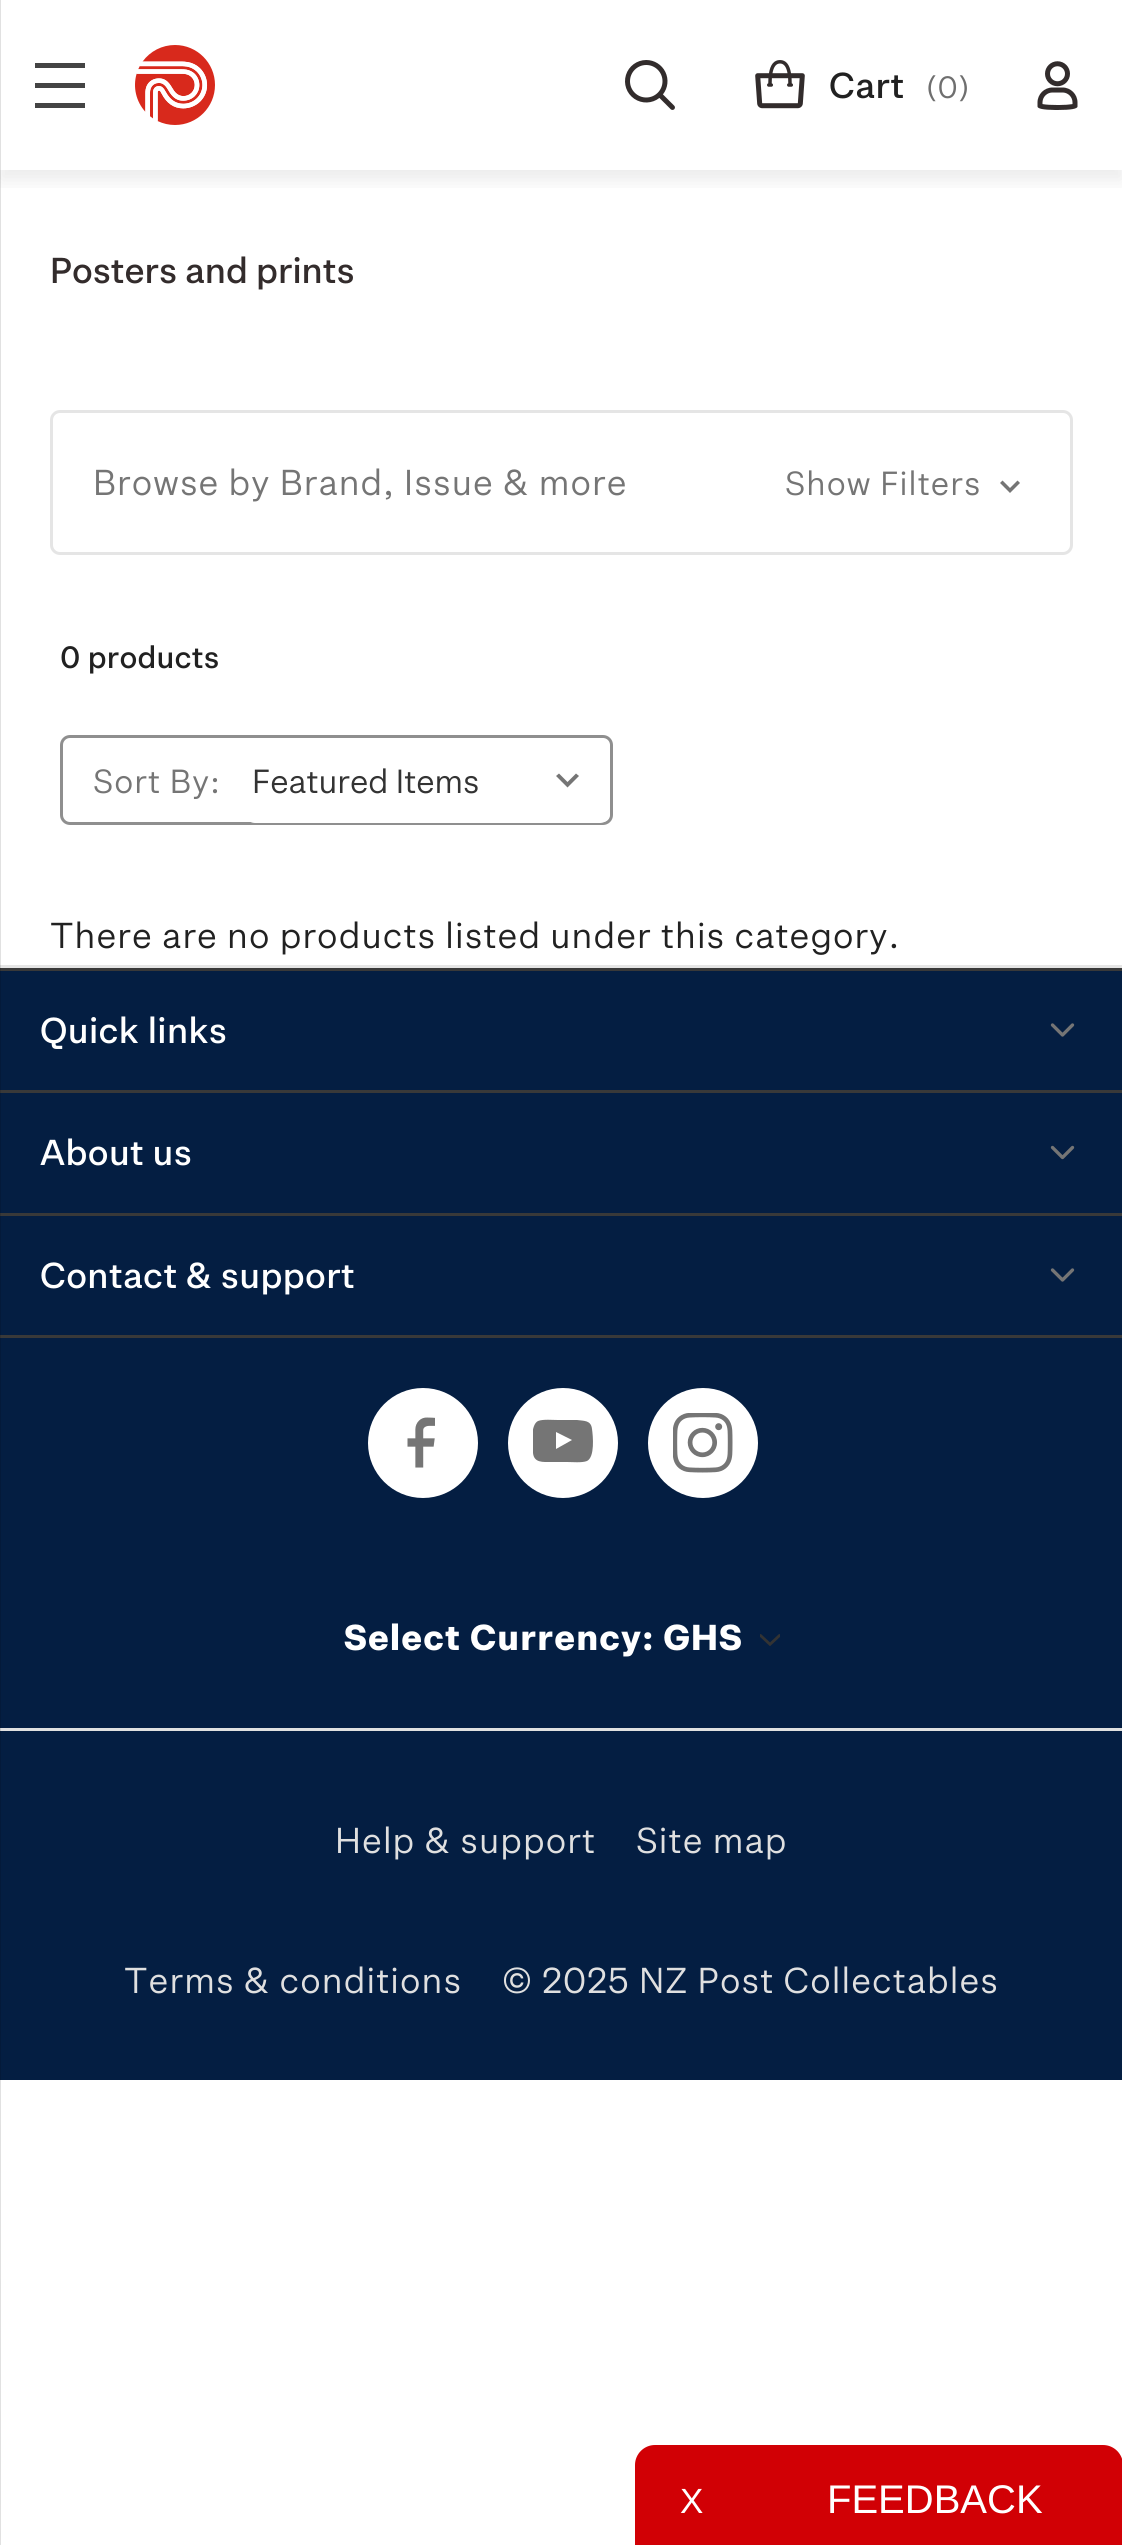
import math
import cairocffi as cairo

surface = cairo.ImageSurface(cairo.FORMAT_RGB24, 1122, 2545)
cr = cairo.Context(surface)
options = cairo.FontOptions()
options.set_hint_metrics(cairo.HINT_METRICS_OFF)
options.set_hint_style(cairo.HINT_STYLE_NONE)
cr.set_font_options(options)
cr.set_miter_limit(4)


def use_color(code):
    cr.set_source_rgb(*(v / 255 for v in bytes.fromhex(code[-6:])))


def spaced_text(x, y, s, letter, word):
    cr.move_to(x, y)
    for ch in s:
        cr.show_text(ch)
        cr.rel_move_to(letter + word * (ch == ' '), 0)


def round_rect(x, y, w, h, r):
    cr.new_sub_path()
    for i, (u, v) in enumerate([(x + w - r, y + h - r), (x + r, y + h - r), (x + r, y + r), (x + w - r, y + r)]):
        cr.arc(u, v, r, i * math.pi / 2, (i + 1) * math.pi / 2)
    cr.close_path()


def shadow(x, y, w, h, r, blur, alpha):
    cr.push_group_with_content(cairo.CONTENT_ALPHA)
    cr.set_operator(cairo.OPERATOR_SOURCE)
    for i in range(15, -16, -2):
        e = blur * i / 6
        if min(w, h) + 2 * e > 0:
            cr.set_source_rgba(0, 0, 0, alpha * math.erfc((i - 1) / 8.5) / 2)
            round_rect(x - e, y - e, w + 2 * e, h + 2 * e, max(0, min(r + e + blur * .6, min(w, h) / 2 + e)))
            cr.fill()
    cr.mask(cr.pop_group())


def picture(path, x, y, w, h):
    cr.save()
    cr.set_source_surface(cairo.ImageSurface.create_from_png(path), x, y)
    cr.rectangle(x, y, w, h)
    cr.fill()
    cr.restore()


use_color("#ffffff")
cr.paint()
cr.save()
cr.rectangle(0, 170, 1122, 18)
cr.clip()
use_color("#303133")
shadow(0, 10, 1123, 170, 0, 10, 0.1)
cr.restore()
use_color("#041e42")
cr.rectangle(0, 971, 1122, 1109)
cr.fill()
use_color("#e5e5e5")
cr.rectangle(0, 965, 1122, 3)
cr.fill()
use_color("#393939")
cr.rectangle(0, 968, 1122, 3)
cr.fill()
cr.rectangle(0, 1090, 1122, 3)
cr.fill()
cr.rectangle(0, 1213, 1122, 3)
cr.fill()
cr.rectangle(0, 1335, 1122, 3)
cr.fill()
use_color("#e0e0e0")
cr.rectangle(0, 1728, 1122, 3)
cr.fill()
cr.set_source_rgba(0, 0, 0, 0.12)
cr.rectangle(0, 0, 1, 2545)
cr.fill()
use_color("#444444")
cr.rectangle(35, 83, 50, 5)
cr.fill()
cr.rectangle(35, 63, 50, 5)
cr.fill()
cr.rectangle(35, 103, 50, 5)
cr.fill()
picture("img1.png", 135, 45, 80, 80)
picture("img2.png", 625, 60, 50, 50)
picture("img3.png", 755, 60, 50, 49)
cr.select_font_face("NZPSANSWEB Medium")
cr.set_font_size(35)
use_color("#212121")
spaced_text(829, 98, "Cart", 0.5, 0)
cr.select_font_face("NZPSANSWEB")
cr.set_font_size(30)
use_color("#6f6f6f")
spaced_text(926, 98, "(0)", 0.25, 0)
picture("img4.png", 1037, 61, 41, 49)
cr.select_font_face("NZPSANSWEB Medium")
cr.set_font_size(35)
use_color("#332c2c")
cr.move_to(50, 283)
cr.show_text("Posters and prints")
round_rect(51.5, 411.5, 1020, 142, 8.5)
use_color("#e5e5e5")
cr.set_line_width(3)
cr.stroke()
cr.select_font_face("NZPSANSWEB")
use_color("#757575")
spaced_text(93, 495, "Browse by Brand, Issue & more", 1.1, 0)
cr.set_font_size(32.5)
spaced_text(785, 495, "Show Filters", 1.1, 0)
cr.new_path()
cr.move_to(1002.5, 480.5)
cr.line_to(1010, 488)
cr.line_to(1017.5, 480.5)
cr.line_to(1020, 483)
cr.line_to(1010, 493)
cr.line_to(1000, 483)
cr.close_path()
cr.fill()
cr.select_font_face("NZPSANSWEB Medium")
cr.set_font_size(30)
use_color("#212121")
spaced_text(60, 668, "0 products", 0.25, 0)
round_rect(61.5, 736.5, 550, 87, 8.5)
use_color("#8f8f8f")
cr.stroke()
cr.select_font_face("NZPSANSWEB")
cr.set_font_size(32.5)
use_color("#757575")
spaced_text(93, 793, "Sort By:", 1.1, 0)
use_color("#ffffff")
round_rect(245, 738, 365, 85, 10)
cr.fill()
use_color("#757575")
cr.new_path()
cr.move_to(576, 773.5)
cr.line_to(567.5, 782)
cr.line_to(559, 773.5)
cr.line_to(556, 776)
cr.line_to(567.5, 787.5)
cr.line_to(579, 776)
cr.close_path()
cr.fill()
use_color("#333333")
cr.move_to(252, 793)
cr.show_text("Featured Items")
cr.set_font_size(35)
use_color("#212121")
spaced_text(50, 948, "There are no products listed under this category.", 1.1, 0)
cr.select_font_face("NZPSANSWEB Medium")
use_color("#ffffff")
spaced_text(40, 1043, "Quick links", 0.4, 0)
picture("img5.png", 1050, 1023, 25, 14)
spaced_text(40, 1165, "About us", 0.4, 0)
picture("img6.png", 1050, 1145, 25, 15)
spaced_text(40, 1288, "Contact & support", 0.4, 0)
picture("img5.png", 1050, 1268, 25, 14)
cr.arc(423, 1443, 55, 0, 2 * math.pi)
cr.fill()
picture("img7.png", 407, 1417, 28, 51)
cr.arc(563, 1443, 55, 0, 2 * math.pi)
cr.fill()
cr.save()
cr.rectangle(533, 1413, 60, 60)
cr.clip()
use_color("#757575")
cr.new_path()
cr.move_to(592, 1429)
cr.curve_to(591, 1420, 584, 1421, 577, 1420)
cr.line_to(558, 1420)
cr.curve_to(553, 1420, 543, 1419, 538, 1421)
cr.curve_to(530, 1425, 532, 1447, 533, 1453)
cr.curve_to(534, 1463, 543, 1462, 551, 1462)
cr.line_to(567, 1462)
cr.curve_to(572, 1462, 582, 1463, 587, 1461)
cr.curve_to(595, 1457, 593, 1436, 592, 1429)
cr.close_path()
cr.move_to(556, 1449)
cr.line_to(556, 1432)
cr.line_to(572, 1440)
cr.close_path()
cr.fill()
cr.restore()
cr.arc(703, 1443, 55, 0, 2 * math.pi)
cr.fill()
picture("img8.png", 673, 1413, 60, 60)
cr.select_font_face("NZPSANSWEB", cairo.FONT_SLANT_NORMAL, cairo.FONT_WEIGHT_BOLD)
spaced_text(344, 1650, "Select Currency: GHS", 1.1, 0)
picture("img9.png", 760, 1634, 20, 12)
cr.select_font_face("NZPSANSWEB")
use_color("#e0e0e0")
spaced_text(335, 1853, "Help & support", 1.1, 0)
spaced_text(636, 1853, "Site map", 1.1, 0)
spaced_text(124, 1993, "Terms & conditions", 1.1, 0)
spaced_text(502, 1993, "© 2025 NZ Post Collectables", 1.1, 0)
use_color("#d10005")
cr.new_path()
cr.move_to(655, 2445)
cr.line_to(748, 2445)
cr.line_to(748, 2545)
cr.line_to(635, 2545)
cr.line_to(635, 2465)
cr.curve_to(635, 2454, 644, 2445, 655, 2445)
cr.close_path()
cr.fill()
cr.select_font_face("Liberation Sans")
use_color("#ffffff")
cr.move_to(680, 2513)
cr.show_text("X")
use_color("#d10005")
cr.new_path()
cr.move_to(748, 2445)
cr.line_to(1103, 2445)
cr.curve_to(1114, 2445, 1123, 2454, 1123, 2465)
cr.line_to(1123, 2545)
cr.line_to(748, 2545)
cr.close_path()
cr.fill()
cr.set_font_size(40)
use_color("#ffffff")
cr.move_to(827, 2513)
cr.show_text("FEEDBACK")
surface.write_to_png("result.png")
